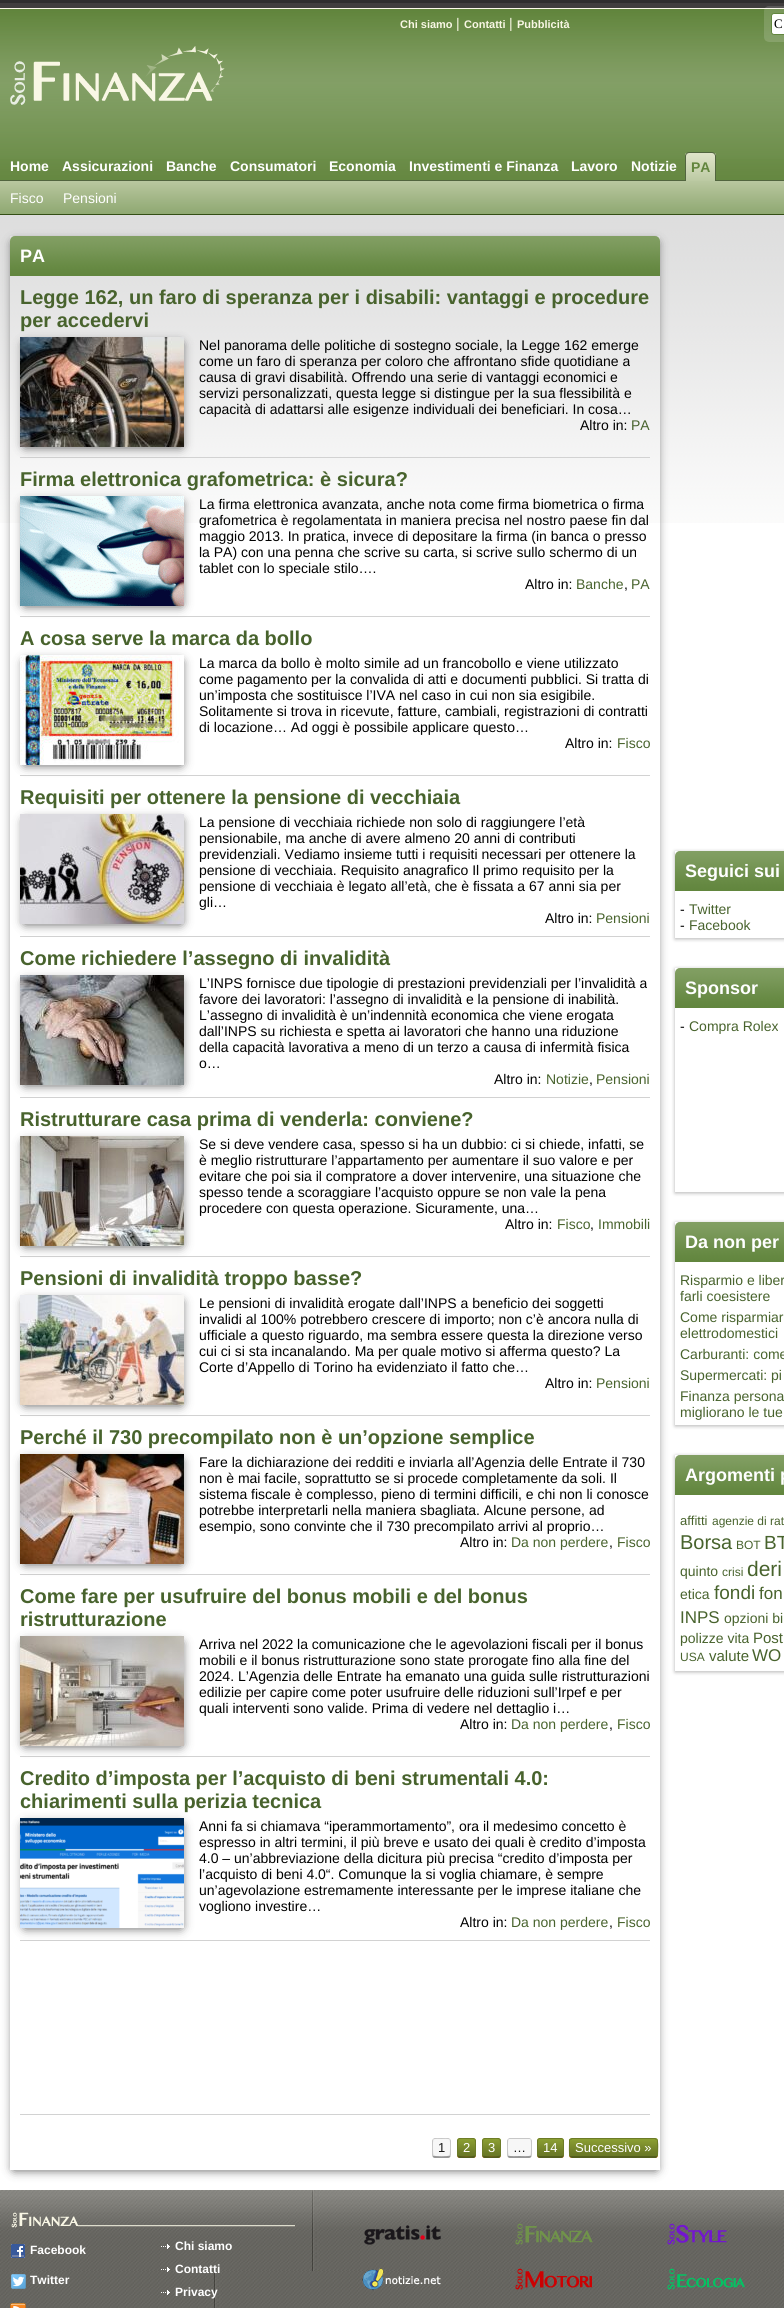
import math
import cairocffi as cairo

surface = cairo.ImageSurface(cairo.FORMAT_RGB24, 784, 2308)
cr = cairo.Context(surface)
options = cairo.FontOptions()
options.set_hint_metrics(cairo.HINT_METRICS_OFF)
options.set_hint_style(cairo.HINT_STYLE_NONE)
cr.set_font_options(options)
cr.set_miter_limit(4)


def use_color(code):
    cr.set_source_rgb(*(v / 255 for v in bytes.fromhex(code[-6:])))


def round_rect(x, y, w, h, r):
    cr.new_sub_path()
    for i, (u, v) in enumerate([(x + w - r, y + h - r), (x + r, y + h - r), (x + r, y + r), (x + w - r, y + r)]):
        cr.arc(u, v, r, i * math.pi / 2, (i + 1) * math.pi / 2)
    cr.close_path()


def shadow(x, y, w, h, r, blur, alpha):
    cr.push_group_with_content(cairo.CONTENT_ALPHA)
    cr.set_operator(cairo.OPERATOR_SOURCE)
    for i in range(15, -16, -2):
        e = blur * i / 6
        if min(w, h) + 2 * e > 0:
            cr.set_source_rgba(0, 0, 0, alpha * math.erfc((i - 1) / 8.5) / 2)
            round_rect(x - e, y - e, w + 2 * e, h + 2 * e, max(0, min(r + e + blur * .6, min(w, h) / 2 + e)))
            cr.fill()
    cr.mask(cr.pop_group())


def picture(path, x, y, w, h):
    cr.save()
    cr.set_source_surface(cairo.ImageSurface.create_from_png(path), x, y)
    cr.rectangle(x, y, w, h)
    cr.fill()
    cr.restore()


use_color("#ffffff")
cr.paint()
picture("img1.png", 0, 0, 784, 180)
cr.select_font_face("Liberation Sans", cairo.FONT_SLANT_NORMAL, cairo.FONT_WEIGHT_BOLD)
cr.set_font_size(11)
use_color("#f9f7e5")
cr.move_to(400, 28)
cr.show_text("Chi siamo")
cr.select_font_face("Liberation Sans")
cr.set_font_size(14)
cr.move_to(456, 28)
cr.show_text("|")
cr.select_font_face("Liberation Sans", cairo.FONT_SLANT_NORMAL, cairo.FONT_WEIGHT_BOLD)
cr.set_font_size(11)
cr.move_to(464, 28)
cr.show_text("Contatti")
cr.select_font_face("Liberation Sans")
cr.set_font_size(14)
cr.move_to(509, 28)
cr.show_text("|")
cr.select_font_face("Liberation Sans", cairo.FONT_SLANT_NORMAL, cairo.FONT_WEIGHT_BOLD)
cr.set_font_size(11)
cr.move_to(517, 28)
cr.show_text("Pubblicità")
picture("img2.png", 764, 6, 20, 36)
use_color("#ffffff")
round_rect(771.5, 13.5, 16, 21, 2.5)
cr.fill_preserve()
use_color("#62863e")
cr.set_line_width(1)
cr.stroke()
cr.select_font_face("Liberation Serif")
cr.set_font_size(13)
use_color("#000000")
cr.move_to(774, 28)
cr.show_text("C")
picture("img3.png", 10, 46, 215, 59)
cr.select_font_face("Liberation Sans", cairo.FONT_SLANT_NORMAL, cairo.FONT_WEIGHT_BOLD)
cr.set_font_size(14)
use_color("#ffffff")
cr.move_to(10, 171)
cr.show_text("Home")
cr.move_to(62, 171)
cr.show_text("Assicurazioni")
cr.move_to(166, 171)
cr.show_text("Banche")
cr.move_to(230, 171)
cr.show_text("Consumatori")
cr.move_to(329, 171)
cr.show_text("Economia")
cr.move_to(409, 171)
cr.show_text("Investimenti e Finanza")
cr.move_to(571, 171)
cr.show_text("Lavoro")
cr.move_to(631, 171)
cr.show_text("Notizie")
use_color("#52653f")
cr.rectangle(0, 180, 784, 1)
cr.fill()
picture("img4.png", 685, 153, 31, 28)
cr.set_fill_rule(cairo.FILL_RULE_EVEN_ODD)
cr.new_path()
cr.move_to(689, 152)
cr.line_to(712, 152)
cr.curve_to(714, 152, 716, 154, 716, 156)
cr.line_to(716, 181)
cr.line_to(685, 181)
cr.line_to(685, 156)
cr.curve_to(685, 154, 687, 152, 689, 152)
cr.close_path()
cr.move_to(689, 153)
cr.line_to(712, 153)
cr.curve_to(713.5, 153, 715, 154.5, 715, 156)
cr.line_to(715, 181)
cr.line_to(686, 181)
cr.line_to(686, 156)
cr.curve_to(686, 154.5, 687.5, 153, 689, 153)
cr.close_path()
cr.fill()
use_color("#62853d")
cr.move_to(691, 172)
cr.show_text("PA")
picture("img5.png", 0, 181, 784, 33)
use_color("#334f15")
cr.rectangle(0, 214, 784, 1)
cr.fill()
cr.select_font_face("Liberation Sans")
use_color("#ffffff")
cr.move_to(10, 203)
cr.show_text("Fisco")
cr.move_to(63, 203)
cr.show_text("Pensioni")
picture("img6.png", 0, 215, 784, 308)
cr.save()
cr.new_path()
cr.move_to(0, 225)
cr.line_to(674, 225)
cr.line_to(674, 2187)
cr.line_to(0, 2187)
cr.close_path()
cr.move_to(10, 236)
cr.line_to(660, 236)
cr.line_to(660, 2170)
cr.line_to(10, 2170)
cr.close_path()
cr.clip()
use_color("#000000")
shadow(14, 243, 642, 1926, 0, 5.5, 0.8)
cr.restore()
picture("img7.png", 10, 236, 650, 40)
cr.select_font_face("Liberation Sans", cairo.FONT_SLANT_NORMAL, cairo.FONT_WEIGHT_BOLD)
cr.set_font_size(18)
cr.move_to(20, 262)
cr.show_text("PA")
use_color("#d2d2d2")
cr.rectangle(20, 457, 630, 1)
cr.fill()
cr.set_font_size(20)
use_color("#48632d")
cr.move_to(20, 304)
cr.show_text("Legge 162, un faro di speranza per i disabili: vantaggi e procedure")
use_color("#000000")
shadow(25, 344, 156, 102, 0, 5.5, 0.8)
use_color("#48632d")
cr.move_to(20, 327)
cr.show_text("per accedervi")
picture("img8.png", 20, 337, 164, 110)
cr.select_font_face("Liberation Sans")
cr.set_font_size(14)
use_color("#000000")
cr.move_to(199, 350)
cr.show_text("Nel panorama delle politiche di sostegno sociale, la Legge 162 emerge")
cr.move_to(199, 366)
cr.show_text("come un faro di speranza per coloro che affrontano sfide quotidiane a")
cr.move_to(199, 382)
cr.show_text("causa di gravi disabilità. Offrendo una serie di vantaggi economici e")
cr.move_to(199, 398)
cr.show_text("servizi personalizzati, questa legge si distingue per la sua flessibilità e")
cr.move_to(199, 414)
cr.show_text("capacità di adattarsi alle esigenze individuali dei beneficiari. In cosa…")
cr.move_to(580, 430)
cr.show_text("Altro in:")
use_color("#48632d")
cr.move_to(631, 430)
cr.show_text("PA")
use_color("#d2d2d2")
cr.rectangle(20, 616, 630, 1)
cr.fill()
use_color("#000000")
shadow(25, 503, 156, 102, 0, 5.5, 0.8)
cr.select_font_face("Liberation Sans", cairo.FONT_SLANT_NORMAL, cairo.FONT_WEIGHT_BOLD)
cr.set_font_size(20)
use_color("#48632d")
cr.move_to(20, 486)
cr.show_text("Firma elettronica grafometrica: è sicura?")
picture("img9.png", 20, 496, 164, 110)
cr.select_font_face("Liberation Sans")
cr.set_font_size(14)
use_color("#000000")
cr.move_to(199, 509)
cr.show_text("La firma elettronica avanzata, anche nota come firma biometrica o firma")
cr.move_to(199, 525)
cr.show_text("grafometrica è regolamentata in maniera precisa nel nostro paese fin dal")
cr.move_to(199, 541)
cr.show_text("maggio 2013. In pratica, invece di depositare la firma (in banca o presso")
cr.move_to(199, 557)
cr.show_text("la PA) con una penna che scrive su carta, si scrive sullo schermo di un")
cr.move_to(199, 573)
cr.show_text("tablet con lo speciale stilo….")
cr.move_to(525, 589)
cr.show_text("Altro in:")
use_color("#48632d")
cr.move_to(576, 589)
cr.show_text("Banche")
use_color("#000000")
cr.move_to(624, 589)
cr.show_text(",")
use_color("#48632d")
cr.move_to(631, 589)
cr.show_text("PA")
use_color("#d2d2d2")
cr.rectangle(20, 775, 630, 1)
cr.fill()
cr.save()
cr.new_path()
cr.move_to(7, 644)
cr.line_to(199, 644)
cr.line_to(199, 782)
cr.line_to(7, 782)
cr.close_path()
cr.move_to(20, 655)
cr.line_to(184, 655)
cr.line_to(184, 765)
cr.line_to(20, 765)
cr.close_path()
cr.clip()
use_color("#000000")
shadow(25, 662, 156, 102, 0, 5.5, 0.8)
cr.restore()
cr.select_font_face("Liberation Sans", cairo.FONT_SLANT_NORMAL, cairo.FONT_WEIGHT_BOLD)
cr.set_font_size(20)
use_color("#48632d")
cr.move_to(20, 645)
cr.show_text("A cosa serve la marca da bollo")
picture("img10.png", 20, 655, 160, 110)
cr.select_font_face("Liberation Sans")
cr.set_font_size(14)
use_color("#000000")
cr.move_to(199, 668)
cr.show_text("La marca da bollo è molto simile ad un francobollo e viene utilizzato")
cr.move_to(199, 684)
cr.show_text("come pagamento per la convalida di atti e documenti pubblici. Si tratta di")
cr.move_to(199, 700)
cr.show_text("un’imposta che sostituisce l’IVA nel caso in cui non sia esigibile.")
cr.move_to(199, 716)
cr.show_text("Solitamente si trova in ricevute, fatture, cambiali, registrazioni di contratti")
cr.move_to(199, 732)
cr.show_text("di locazione… Ad oggi è possibile applicare questo…")
cr.move_to(565, 748)
cr.show_text("Altro in:")
use_color("#48632d")
cr.move_to(617, 748)
cr.show_text("Fisco")
use_color("#d2d2d2")
cr.rectangle(20, 936, 630, 1)
cr.fill()
use_color("#000000")
shadow(25, 821, 156, 102, 0, 5.5, 0.8)
cr.select_font_face("Liberation Sans", cairo.FONT_SLANT_NORMAL, cairo.FONT_WEIGHT_BOLD)
cr.set_font_size(20)
use_color("#48632d")
cr.move_to(20, 804)
cr.show_text("Requisiti per ottenere la pensione di vecchiaia")
picture("img11.png", 20, 814, 164, 110)
cr.select_font_face("Liberation Sans")
cr.set_font_size(14)
use_color("#000000")
cr.move_to(199, 827)
cr.show_text("La pensione di vecchiaia richiede non solo di raggiungere l’età")
cr.move_to(199, 843)
cr.show_text("pensionabile, ma anche di avere almeno 20 anni di contributi")
cr.move_to(199, 859)
cr.show_text("previdenziali. Vediamo insieme tutti i requisiti necessari per ottenere la")
cr.move_to(199, 875)
cr.show_text("pensione di vecchiaia. Requisito anagrafico Il primo requisito per la")
cr.move_to(199, 891)
cr.show_text("pensione di vecchiaia è legato all’età, che è fissata a 67 anni sia per")
cr.move_to(199, 907)
cr.show_text("gli…")
cr.move_to(545, 923)
cr.show_text("Altro in:")
use_color("#48632d")
cr.move_to(596, 923)
cr.show_text("Pensioni")
use_color("#d2d2d2")
cr.rectangle(20, 1097, 630, 1)
cr.fill()
use_color("#000000")
shadow(25, 982, 156, 102, 0, 5.5, 0.8)
cr.select_font_face("Liberation Sans", cairo.FONT_SLANT_NORMAL, cairo.FONT_WEIGHT_BOLD)
cr.set_font_size(20)
use_color("#48632d")
cr.move_to(20, 965)
cr.show_text("Come richiedere l’assegno di invalidità")
picture("img12.png", 20, 975, 164, 110)
cr.select_font_face("Liberation Sans")
cr.set_font_size(14)
use_color("#000000")
cr.move_to(199, 988)
cr.show_text("L’INPS fornisce due tipologie di prestazioni previdenziali per l’invalidità a")
cr.move_to(199, 1004)
cr.show_text("favore dei lavoratori: l’assegno di invalidità e la pensione di inabilità.")
cr.move_to(199, 1020)
cr.show_text("L’assegno di invalidità è un’indennità economica che viene erogata")
cr.move_to(199, 1036)
cr.show_text("dall’INPS su richiesta e spetta ai lavoratori che hanno una riduzione")
cr.move_to(199, 1052)
cr.show_text("della capacità lavorativa a meno di un terzo a causa di infermità fisica")
cr.move_to(199, 1068)
cr.show_text("o…")
cr.move_to(494, 1084)
cr.show_text("Altro in:")
use_color("#48632d")
cr.move_to(546, 1084)
cr.show_text("Notizie")
use_color("#000000")
cr.move_to(589, 1084)
cr.show_text(",")
use_color("#48632d")
cr.move_to(596, 1084)
cr.show_text("Pensioni")
use_color("#d2d2d2")
cr.rectangle(20, 1256, 630, 1)
cr.fill()
use_color("#000000")
shadow(25, 1143, 156, 102, 0, 5.5, 0.8)
cr.select_font_face("Liberation Sans", cairo.FONT_SLANT_NORMAL, cairo.FONT_WEIGHT_BOLD)
cr.set_font_size(20)
use_color("#48632d")
cr.move_to(20, 1126)
cr.show_text("Ristrutturare casa prima di venderla: conviene?")
picture("img13.png", 20, 1136, 164, 110)
cr.select_font_face("Liberation Sans")
cr.set_font_size(14)
use_color("#000000")
cr.move_to(199, 1149)
cr.show_text("Se si deve vendere casa, spesso si ha un dubbio: ci si chiede, infatti, se")
cr.move_to(199, 1165)
cr.show_text("è meglio ristrutturare l’appartamento per aumentare il suo valore e per")
cr.move_to(199, 1181)
cr.show_text("evitare che poi sia il compratore a dover intervenire, una situazione che")
cr.move_to(199, 1197)
cr.show_text("spesso tende a scoraggiare l’acquisto oppure se non vale la pena")
cr.move_to(199, 1213)
cr.show_text("procedere con questa operazione. Sicuramente, una…")
cr.move_to(505, 1229)
cr.show_text("Altro in:")
use_color("#48632d")
cr.move_to(557, 1229)
cr.show_text("Fisco")
use_color("#000000")
cr.move_to(590, 1229)
cr.show_text(",")
use_color("#48632d")
cr.move_to(598, 1229)
cr.show_text("Immobili")
use_color("#d2d2d2")
cr.rectangle(20, 1415, 630, 1)
cr.fill()
use_color("#000000")
shadow(25, 1302, 156, 102, 0, 5.5, 0.8)
cr.select_font_face("Liberation Sans", cairo.FONT_SLANT_NORMAL, cairo.FONT_WEIGHT_BOLD)
cr.set_font_size(20)
use_color("#48632d")
cr.move_to(20, 1285)
cr.show_text("Pensioni di invalidità troppo basse?")
picture("img14.png", 20, 1295, 164, 110)
cr.select_font_face("Liberation Sans")
cr.set_font_size(14)
use_color("#000000")
cr.move_to(199, 1308)
cr.show_text("Le pensioni di invalidità erogate dall’INPS a beneficio dei soggetti")
cr.move_to(199, 1324)
cr.show_text("invalidi al 100% potrebbero crescere di importo; non c’è ancora nulla di")
cr.move_to(199, 1340)
cr.show_text("ufficiale a questo riguardo, ma sembra essere questa la direzione verso")
cr.move_to(199, 1356)
cr.show_text("cui ci si sta incanalando. Ma per quale motivo si afferma questo? La")
cr.move_to(199, 1372)
cr.show_text("Corte d’Appello di Torino ha evidenziato il fatto che…")
cr.move_to(545, 1388)
cr.show_text("Altro in:")
use_color("#48632d")
cr.move_to(596, 1388)
cr.show_text("Pensioni")
use_color("#d2d2d2")
cr.rectangle(20, 1574, 630, 1)
cr.fill()
use_color("#000000")
shadow(25, 1461, 156, 102, 0, 5.5, 0.8)
cr.select_font_face("Liberation Sans", cairo.FONT_SLANT_NORMAL, cairo.FONT_WEIGHT_BOLD)
cr.set_font_size(20)
use_color("#48632d")
cr.move_to(20, 1444)
cr.show_text("Perché il 730 precompilato non è un’opzione semplice")
picture("img15.png", 20, 1454, 164, 110)
cr.select_font_face("Liberation Sans")
cr.set_font_size(14)
use_color("#000000")
cr.move_to(199, 1467)
cr.show_text("Fare la dichiarazione dei redditi e inviarla all’Agenzia delle Entrate il 730")
cr.move_to(199, 1483)
cr.show_text("non è mai facile, soprattutto se si procede completamente da soli. Il")
cr.move_to(199, 1499)
cr.show_text("sistema fiscale è complesso, pieno di termini difficili, e chi non li conosce")
cr.move_to(199, 1515)
cr.show_text("potrebbe interpretarli nella maniera sbagliata. Alcune persone, ad")
cr.move_to(199, 1531)
cr.show_text("esempio, sono convinte che il 730 precompilato arrivi al proprio…")
cr.move_to(460, 1547)
cr.show_text("Altro in:")
use_color("#48632d")
cr.move_to(511, 1547)
cr.show_text("Da non perdere")
use_color("#000000")
cr.move_to(609, 1547)
cr.show_text(",")
use_color("#48632d")
cr.move_to(617, 1547)
cr.show_text("Fisco")
use_color("#d2d2d2")
cr.rectangle(20, 1756, 630, 1)
cr.fill()
cr.select_font_face("Liberation Sans", cairo.FONT_SLANT_NORMAL, cairo.FONT_WEIGHT_BOLD)
cr.set_font_size(20)
use_color("#48632d")
cr.move_to(20, 1603)
cr.show_text("Come fare per usufruire del bonus mobili e del bonus")
use_color("#000000")
shadow(25, 1643, 156, 102, 0, 5.5, 0.8)
use_color("#48632d")
cr.move_to(20, 1626)
cr.show_text("ristrutturazione")
picture("img16.png", 20, 1636, 164, 110)
cr.select_font_face("Liberation Sans")
cr.set_font_size(14)
use_color("#000000")
cr.move_to(199, 1649)
cr.show_text("Arriva nel 2022 la comunicazione che le agevolazioni fiscali per il bonus")
cr.move_to(199, 1665)
cr.show_text("mobili e il bonus ristrutturazione sono state prorogate fino alla fine del")
cr.move_to(199, 1681)
cr.show_text("2024. L’Agenzia delle Entrate ha emanato una guida sulle ristrutturazioni")
cr.move_to(199, 1697)
cr.show_text("edilizie per capire come poter usufruire delle riduzioni sull’Irpef e per")
cr.move_to(199, 1713)
cr.show_text("quali interventi sono valide. Prima di vedere nel dettaglio i…")
cr.move_to(460, 1729)
cr.show_text("Altro in:")
use_color("#48632d")
cr.move_to(511, 1729)
cr.show_text("Da non perdere")
use_color("#000000")
cr.move_to(609, 1729)
cr.show_text(",")
use_color("#48632d")
cr.move_to(617, 1729)
cr.show_text("Fisco")
use_color("#d2d2d2")
cr.rectangle(20, 1940, 630, 1)
cr.fill()
cr.select_font_face("Liberation Sans", cairo.FONT_SLANT_NORMAL, cairo.FONT_WEIGHT_BOLD)
cr.set_font_size(20)
use_color("#48632d")
cr.move_to(20, 1785)
cr.show_text("Credito d’imposta per l’acquisto di beni strumentali 4.0:")
use_color("#000000")
shadow(25, 1825, 156, 102, 0, 5.5, 0.8)
use_color("#48632d")
cr.move_to(20, 1808)
cr.show_text("chiarimenti sulla perizia tecnica")
picture("img17.png", 20, 1818, 164, 110)
cr.select_font_face("Liberation Sans")
cr.set_font_size(14)
use_color("#000000")
cr.move_to(199, 1831)
cr.show_text("Anni fa si chiamava “iperammortamento”, ora il medesimo concetto è")
cr.move_to(199, 1847)
cr.show_text("espresso in altri termini, il più breve e usato dei quali è credito d’imposta")
cr.move_to(199, 1863)
cr.show_text("4.0 – un’abbreviazione della dicitura più precisa “credito d’imposta per")
cr.move_to(199, 1879)
cr.show_text("l’acquisto di beni 4.0“. Comunque la si voglia chiamare, è sempre")
cr.move_to(199, 1895)
cr.show_text("un’agevolazione estremamente interessante per le imprese italiane che")
cr.move_to(199, 1911)
cr.show_text("vogliono investire…")
cr.move_to(460, 1927)
cr.show_text("Altro in:")
use_color("#48632d")
cr.move_to(511, 1927)
cr.show_text("Da non perdere")
use_color("#000000")
cr.move_to(609, 1927)
cr.show_text(",")
use_color("#48632d")
cr.move_to(617, 1927)
cr.show_text("Fisco")
use_color("#d2d2d2")
cr.rectangle(20, 2114, 630, 1)
cr.fill()
picture("img18.png", 457, 2138, 19, 20)
picture("img18.png", 482, 2138, 19, 20)
picture("img19.png", 537, 2138, 27, 20)
picture("img20.png", 569, 2138, 89, 20)
use_color("#f7f7f7")
cr.set_fill_rule(cairo.FILL_RULE_WINDING)
cr.new_path()
cr.move_to(435, 2139)
cr.line_to(448, 2139)
cr.curve_to(449, 2139, 450, 2140, 450, 2141)
cr.line_to(450, 2155)
cr.curve_to(450, 2155.5, 449, 2156, 448, 2156)
cr.line_to(435, 2156)
cr.curve_to(434, 2156, 433, 2155.5, 433, 2155)
cr.line_to(433, 2141)
cr.curve_to(433, 2140, 434, 2139, 435, 2139)
cr.close_path()
cr.fill()
cr.set_font_size(13)
use_color("#181818")
cr.move_to(438, 2152)
cr.show_text("1")
use_color("#c7c7c7")
cr.new_path()
cr.move_to(435, 2138)
cr.curve_to(434, 2138, 433.5, 2138.5, 433, 2139)
cr.line_to(433.5, 2139.5)
cr.curve_to(435, 2138.5, 440, 2139, 441.5, 2139)
cr.curve_to(443, 2139, 448, 2138.5, 449.5, 2139.5)
cr.line_to(450, 2139)
cr.curve_to(449.5, 2138.5, 449, 2138, 448, 2138)
cr.close_path()
cr.fill()
cr.new_path()
cr.move_to(451, 2155)
cr.line_to(451, 2141)
cr.curve_to(451, 2140, 450.5, 2139.5, 450, 2139)
cr.line_to(449.5, 2139.5)
cr.curve_to(450.5, 2141, 450, 2155, 449.5, 2155.5)
cr.line_to(450.5, 2156.5)
cr.close_path()
cr.fill()
use_color("#979797")
cr.new_path()
cr.move_to(435, 2158)
cr.line_to(448, 2158)
cr.curve_to(449, 2158, 450, 2157.5, 450.5, 2156.5)
cr.line_to(449.5, 2155.5)
cr.curve_to(448.5, 2156.5, 434.5, 2156.5, 433.5, 2155.5)
cr.line_to(432.5, 2156.5)
cr.curve_to(433, 2157.5, 434, 2158, 435, 2158)
cr.close_path()
cr.fill()
use_color("#c7c7c7")
cr.new_path()
cr.move_to(432, 2141)
cr.line_to(432, 2155)
cr.curve_to(432, 2155.5, 432, 2156, 432.5, 2156.5)
cr.line_to(433.5, 2155.5)
cr.curve_to(433, 2155, 432.5, 2141, 433.5, 2139.5)
cr.line_to(433, 2139)
cr.curve_to(432.5, 2139.5, 432, 2140, 432, 2141)
cr.close_path()
cr.fill()
use_color("#ffffff")
cr.move_to(463, 2152)
cr.show_text("2")
use_color("#6c7b27")
cr.new_path()
cr.move_to(460, 2138)
cr.curve_to(459, 2138, 458.5, 2138.5, 458, 2139)
cr.line_to(458.5, 2139.5)
cr.curve_to(460, 2138.5, 465, 2139, 466.5, 2139)
cr.curve_to(468, 2139, 473, 2138.5, 474.5, 2139.5)
cr.line_to(475, 2139)
cr.curve_to(474.5, 2138.5, 474, 2138, 473, 2138)
cr.close_path()
cr.fill()
cr.new_path()
cr.move_to(476, 2155)
cr.line_to(476, 2141)
cr.curve_to(476, 2140, 475.5, 2139.5, 475, 2139)
cr.line_to(474.5, 2139.5)
cr.curve_to(475.5, 2141, 475, 2155, 474.5, 2155.5)
cr.line_to(475.5, 2156.5)
cr.close_path()
cr.fill()
use_color("#535e1e")
cr.new_path()
cr.move_to(460, 2158)
cr.line_to(473, 2158)
cr.curve_to(474, 2158, 475, 2157.5, 475.5, 2156.5)
cr.line_to(474.5, 2155.5)
cr.curve_to(473.5, 2156.5, 459.5, 2156.5, 458.5, 2155.5)
cr.line_to(457.5, 2156.5)
cr.curve_to(458, 2157.5, 459, 2158, 460, 2158)
cr.close_path()
cr.fill()
use_color("#6c7b27")
cr.new_path()
cr.move_to(457, 2141)
cr.line_to(457, 2155)
cr.curve_to(457, 2155.5, 457, 2156, 457.5, 2156.5)
cr.line_to(458.5, 2155.5)
cr.curve_to(458, 2155, 457.5, 2141, 458.5, 2139.5)
cr.line_to(458, 2139)
cr.curve_to(457.5, 2139.5, 457, 2140, 457, 2141)
cr.close_path()
cr.fill()
use_color("#ffffff")
cr.move_to(488, 2152)
cr.show_text("3")
use_color("#6c7b27")
cr.new_path()
cr.move_to(485, 2138)
cr.curve_to(484, 2138, 483.5, 2138.5, 483, 2139)
cr.line_to(483.5, 2139.5)
cr.curve_to(485, 2138.5, 490, 2139, 491.5, 2139)
cr.curve_to(493, 2139, 498, 2138.5, 499.5, 2139.5)
cr.line_to(500, 2139)
cr.curve_to(499.5, 2138.5, 499, 2138, 498, 2138)
cr.close_path()
cr.fill()
cr.new_path()
cr.move_to(501, 2155)
cr.line_to(501, 2141)
cr.curve_to(501, 2140, 500.5, 2139.5, 500, 2139)
cr.line_to(499.5, 2139.5)
cr.curve_to(500.5, 2141, 500, 2155, 499.5, 2155.5)
cr.line_to(500.5, 2156.5)
cr.close_path()
cr.fill()
use_color("#535e1e")
cr.new_path()
cr.move_to(485, 2158)
cr.line_to(498, 2158)
cr.curve_to(499, 2158, 500, 2157.5, 500.5, 2156.5)
cr.line_to(499.5, 2155.5)
cr.curve_to(498.5, 2156.5, 484.5, 2156.5, 483.5, 2155.5)
cr.line_to(482.5, 2156.5)
cr.curve_to(483, 2157.5, 484, 2158, 485, 2158)
cr.close_path()
cr.fill()
use_color("#6c7b27")
cr.new_path()
cr.move_to(482, 2141)
cr.line_to(482, 2155)
cr.curve_to(482, 2155.5, 482, 2156, 482.5, 2156.5)
cr.line_to(483.5, 2155.5)
cr.curve_to(483, 2155, 482.5, 2141, 483.5, 2139.5)
cr.line_to(483, 2139)
cr.curve_to(482.5, 2139.5, 482, 2140, 482, 2141)
cr.close_path()
cr.fill()
use_color("#f7f7f7")
cr.new_path()
cr.move_to(510, 2139)
cr.line_to(529, 2139)
cr.curve_to(530, 2139, 531, 2140, 531, 2141)
cr.line_to(531, 2155)
cr.curve_to(531, 2155.5, 530, 2156, 529, 2156)
cr.line_to(510, 2156)
cr.curve_to(509, 2156, 508, 2155.5, 508, 2155)
cr.line_to(508, 2141)
cr.curve_to(508, 2140, 509, 2139, 510, 2139)
cr.close_path()
cr.fill()
use_color("#181818")
cr.move_to(513, 2152)
cr.show_text("…")
use_color("#c7c7c7")
cr.new_path()
cr.move_to(510, 2138)
cr.curve_to(509, 2138, 508.5, 2138.5, 508, 2139)
cr.line_to(508.5, 2139.5)
cr.curve_to(509, 2139, 509.5, 2139, 510, 2139)
cr.line_to(529, 2139)
cr.curve_to(529.5, 2139, 530, 2139, 530.5, 2139.5)
cr.line_to(531, 2139)
cr.curve_to(530.5, 2138.5, 530, 2138, 529, 2138)
cr.close_path()
cr.fill()
cr.new_path()
cr.move_to(532, 2155)
cr.line_to(532, 2141)
cr.curve_to(532, 2140, 531.5, 2139.5, 531, 2139)
cr.line_to(530.5, 2139.5)
cr.curve_to(531.5, 2141, 531, 2155, 530.5, 2155.5)
cr.line_to(531.5, 2156.5)
cr.close_path()
cr.fill()
use_color("#979797")
cr.new_path()
cr.move_to(510, 2158)
cr.line_to(529, 2158)
cr.curve_to(530, 2158, 531, 2157.5, 531.5, 2156.5)
cr.line_to(530.5, 2155.5)
cr.curve_to(529.5, 2156.5, 521.5, 2156, 519.5, 2156)
cr.curve_to(517.5, 2156, 509.5, 2156.5, 508.5, 2155.5)
cr.line_to(507.5, 2156.5)
cr.curve_to(508, 2157.5, 509, 2158, 510, 2158)
cr.close_path()
cr.fill()
use_color("#c7c7c7")
cr.new_path()
cr.move_to(507, 2141)
cr.line_to(507, 2155)
cr.curve_to(507, 2155.5, 507, 2156, 507.5, 2156.5)
cr.line_to(508.5, 2155.5)
cr.curve_to(508, 2155, 507.5, 2141, 508.5, 2139.5)
cr.line_to(508, 2139)
cr.curve_to(507.5, 2139.5, 507, 2140, 507, 2141)
cr.close_path()
cr.fill()
use_color("#ffffff")
cr.move_to(543, 2152)
cr.show_text("14")
use_color("#6c7b27")
cr.new_path()
cr.move_to(540, 2138)
cr.curve_to(539, 2138, 538.5, 2138.5, 538, 2139)
cr.line_to(538.5, 2139.5)
cr.curve_to(539, 2139, 539.5, 2139, 540, 2139)
cr.line_to(561, 2139)
cr.curve_to(561.5, 2139, 562, 2139, 562.5, 2139.5)
cr.line_to(563, 2139)
cr.curve_to(562.5, 2138.5, 562, 2138, 561, 2138)
cr.close_path()
cr.fill()
cr.new_path()
cr.move_to(564, 2155)
cr.line_to(564, 2141)
cr.curve_to(564, 2140, 563.5, 2139.5, 563, 2139)
cr.line_to(562.5, 2139.5)
cr.curve_to(563.5, 2141, 563, 2155, 562.5, 2155.5)
cr.line_to(563.5, 2156.5)
cr.close_path()
cr.fill()
use_color("#535e1e")
cr.new_path()
cr.move_to(540, 2158)
cr.line_to(561, 2158)
cr.curve_to(562, 2158, 563, 2157.5, 563.5, 2156.5)
cr.line_to(562.5, 2155.5)
cr.curve_to(562.5, 2156, 561.5, 2156, 561, 2156)
cr.line_to(540, 2156)
cr.curve_to(539.5, 2156, 538.5, 2156, 538.5, 2155.5)
cr.line_to(537.5, 2156.5)
cr.curve_to(538, 2157.5, 539, 2158, 540, 2158)
cr.close_path()
cr.fill()
use_color("#6c7b27")
cr.new_path()
cr.move_to(537, 2141)
cr.line_to(537, 2155)
cr.curve_to(537, 2155.5, 537, 2156, 537.5, 2156.5)
cr.line_to(538.5, 2155.5)
cr.curve_to(538, 2155, 537.5, 2141, 538.5, 2139.5)
cr.line_to(538, 2139)
cr.curve_to(537.5, 2139.5, 537, 2140, 537, 2141)
cr.close_path()
cr.fill()
use_color("#ffffff")
cr.move_to(575, 2152)
cr.show_text("Successivo »")
use_color("#6c7b27")
cr.new_path()
cr.move_to(572, 2138)
cr.line_to(570, 2139)
cr.line_to(571, 2140)
cr.line_to(572, 2139)
cr.line_to(655, 2139)
cr.line_to(656, 2140)
cr.line_to(657, 2139)
cr.line_to(655, 2138)
cr.close_path()
cr.fill()
cr.new_path()
cr.move_to(658, 2155)
cr.curve_to(658, 2152.5, 659, 2140.5, 657, 2139)
cr.line_to(656.5, 2139.5)
cr.line_to(657, 2140.5)
cr.line_to(657, 2155.5)
cr.line_to(657.5, 2157)
cr.close_path()
cr.fill()
use_color("#535e1e")
cr.new_path()
cr.move_to(572, 2158)
cr.line_to(656, 2158)
cr.line_to(657, 2157)
cr.line_to(657, 2156)
cr.line_to(656, 2156)
cr.line_to(586, 2156)
cr.line_to(570, 2156)
cr.line_to(570, 2157)
cr.close_path()
cr.fill()
use_color("#6c7b27")
cr.new_path()
cr.move_to(569, 2141)
cr.curve_to(569, 2143.5, 568.5, 2155.5, 569.5, 2157)
cr.line_to(570, 2155.5)
cr.line_to(570, 2140.5)
cr.line_to(570.5, 2139.5)
cr.line_to(570, 2139)
cr.curve_to(569, 2139, 569, 2140, 569, 2141)
cr.close_path()
cr.fill()
cr.save()
cr.set_fill_rule(cairo.FILL_RULE_EVEN_ODD)
cr.new_path()
cr.move_to(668, 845)
cr.line_to(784, 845)
cr.line_to(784, 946)
cr.line_to(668, 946)
cr.close_path()
cr.move_to(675, 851)
cr.line_to(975, 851)
cr.line_to(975, 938)
cr.line_to(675, 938)
cr.close_path()
cr.clip()
use_color("#000000")
shadow(675, 852, 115, 87, 0, 2, 0.3)
cr.restore()
picture("img21.png", 675, 851, 109, 40)
cr.select_font_face("Liberation Sans", cairo.FONT_SLANT_NORMAL, cairo.FONT_WEIGHT_BOLD)
cr.set_font_size(18)
use_color("#ffffff")
cr.move_to(685, 877)
cr.show_text("Seguici sui")
cr.select_font_face("Liberation Sans")
cr.set_font_size(14)
use_color("#000000")
cr.move_to(680, 914)
cr.show_text("-")
use_color("#48632d")
cr.move_to(689, 914)
cr.show_text("Twitter")
use_color("#000000")
cr.move_to(680, 930)
cr.show_text("-")
use_color("#48632d")
cr.move_to(689, 930)
cr.show_text("Facebook")
cr.save()
cr.set_fill_rule(cairo.FILL_RULE_EVEN_ODD)
cr.new_path()
cr.move_to(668, 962)
cr.line_to(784, 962)
cr.line_to(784, 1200)
cr.line_to(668, 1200)
cr.close_path()
cr.move_to(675, 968)
cr.line_to(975, 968)
cr.line_to(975, 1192)
cr.line_to(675, 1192)
cr.close_path()
cr.clip()
use_color("#000000")
shadow(675, 969, 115, 224, 0, 2, 0.3)
cr.restore()
picture("img21.png", 675, 968, 109, 40)
cr.select_font_face("Liberation Sans", cairo.FONT_SLANT_NORMAL, cairo.FONT_WEIGHT_BOLD)
cr.set_font_size(18)
use_color("#ffffff")
cr.move_to(685, 994)
cr.show_text("Sponsor")
cr.select_font_face("Liberation Sans")
cr.set_font_size(14)
use_color("#000000")
cr.move_to(680, 1031)
cr.show_text("-")
use_color("#48632d")
cr.move_to(689, 1031)
cr.show_text("Compra Rolex")
cr.save()
cr.set_fill_rule(cairo.FILL_RULE_EVEN_ODD)
cr.new_path()
cr.move_to(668, 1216)
cr.line_to(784, 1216)
cr.line_to(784, 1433)
cr.line_to(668, 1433)
cr.close_path()
cr.move_to(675, 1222)
cr.line_to(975, 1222)
cr.line_to(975, 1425)
cr.line_to(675, 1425)
cr.close_path()
cr.clip()
use_color("#000000")
shadow(675, 1223, 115, 203, 0, 2, 0.3)
cr.restore()
picture("img21.png", 675, 1222, 109, 40)
cr.select_font_face("Liberation Sans", cairo.FONT_SLANT_NORMAL, cairo.FONT_WEIGHT_BOLD)
cr.set_font_size(18)
use_color("#ffffff")
cr.move_to(685, 1248)
cr.show_text("Da non per")
cr.select_font_face("Liberation Sans")
cr.set_font_size(14)
use_color("#48632d")
cr.move_to(680, 1285)
cr.show_text("Risparmio e liber")
cr.move_to(680, 1301)
cr.show_text("farli coesistere")
cr.move_to(680, 1322)
cr.show_text("Come risparmiar")
cr.move_to(680, 1338)
cr.show_text("elettrodomestici")
cr.move_to(680, 1359)
cr.show_text("Carburanti: come")
cr.move_to(680, 1380)
cr.show_text("Supermercati: pi")
cr.move_to(680, 1401)
cr.show_text("Finanza persona")
cr.move_to(680, 1417)
cr.show_text("migliorano le tue")
cr.save()
cr.set_fill_rule(cairo.FILL_RULE_EVEN_ODD)
cr.new_path()
cr.move_to(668, 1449)
cr.line_to(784, 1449)
cr.line_to(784, 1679)
cr.line_to(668, 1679)
cr.close_path()
cr.move_to(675, 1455)
cr.line_to(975, 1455)
cr.line_to(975, 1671)
cr.line_to(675, 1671)
cr.close_path()
cr.clip()
use_color("#000000")
shadow(675, 1456, 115, 216, 0, 2, 0.3)
cr.restore()
picture("img21.png", 675, 1455, 109, 40)
cr.select_font_face("Liberation Sans", cairo.FONT_SLANT_NORMAL, cairo.FONT_WEIGHT_BOLD)
cr.set_font_size(18)
use_color("#ffffff")
cr.move_to(685, 1481)
cr.show_text("Argomenti p")
cr.select_font_face("Liberation Sans")
cr.set_font_size(13)
use_color("#48632d")
cr.move_to(680, 1525)
cr.show_text("affitti")
cr.set_font_size(12)
cr.move_to(712, 1525)
cr.show_text("agenzie di rat")
cr.set_font_size(20)
cr.move_to(680, 1549)
cr.show_text("Borsa")
cr.set_font_size(12)
cr.move_to(736, 1549)
cr.show_text("BOT")
cr.set_font_size(19)
cr.move_to(764, 1549)
cr.show_text("BT")
cr.set_font_size(14)
cr.move_to(680, 1576)
cr.show_text("quinto")
cr.set_font_size(12)
cr.move_to(722, 1576)
cr.show_text("crisi")
cr.set_font_size(21)
cr.move_to(747, 1576)
cr.show_text("deri")
cr.set_font_size(14)
cr.move_to(680, 1599)
cr.show_text("etica")
cr.set_font_size(19)
cr.move_to(714, 1599)
cr.show_text("fondi")
cr.set_font_size(17)
cr.move_to(759, 1599)
cr.show_text("fon")
cr.move_to(680, 1623)
cr.show_text("INPS")
cr.set_font_size(14)
cr.move_to(724, 1623)
cr.show_text("opzioni bi")
cr.move_to(680, 1643)
cr.show_text("polizze vita")
cr.set_font_size(15)
cr.move_to(753, 1643)
cr.show_text("Post")
cr.set_font_size(12)
cr.move_to(680, 1661)
cr.show_text("USA")
cr.set_font_size(15)
cr.move_to(709, 1661)
cr.show_text("valute")
cr.set_font_size(17)
cr.move_to(752, 1661)
cr.show_text("WO")
picture("img22.png", 0, 2271, 784, 37)
picture("img23.png", 0, 2190, 784, 81)
picture("img24.png", 11, 2212, 284, 16)
picture("img25.png", 11, 2244, 14, 14)
cr.select_font_face("Liberation Sans", cairo.FONT_SLANT_NORMAL, cairo.FONT_WEIGHT_BOLD)
cr.set_font_size(12)
use_color("#ffffff")
cr.move_to(30, 2254)
cr.show_text("Facebook")
picture("img26.png", 11, 2274, 15, 15)
cr.move_to(30, 2284)
cr.show_text("Twitter")
picture("img27.png", 10, 2303, 16, 5)
picture("img28.png", 161, 2244, 9, 5)
cr.move_to(175, 2250)
cr.show_text("Chi siamo")
picture("img29.png", 161, 2267, 9, 5)
cr.move_to(175, 2273)
cr.show_text("Contatti")
picture("img30.png", 161, 2290, 9, 5)
cr.move_to(175, 2296)
cr.show_text("Privacy")
picture("img31.png", 364, 2225, 77, 20)
picture("img32.png", 515, 2223, 78, 22)
picture("img33.png", 667, 2223, 60, 22)
picture("img34.png", 362, 2268, 79, 23)
picture("img35.png", 515, 2268, 77, 22)
picture("img36.png", 667, 2268, 78, 22)
surface.write_to_png("result.png")
